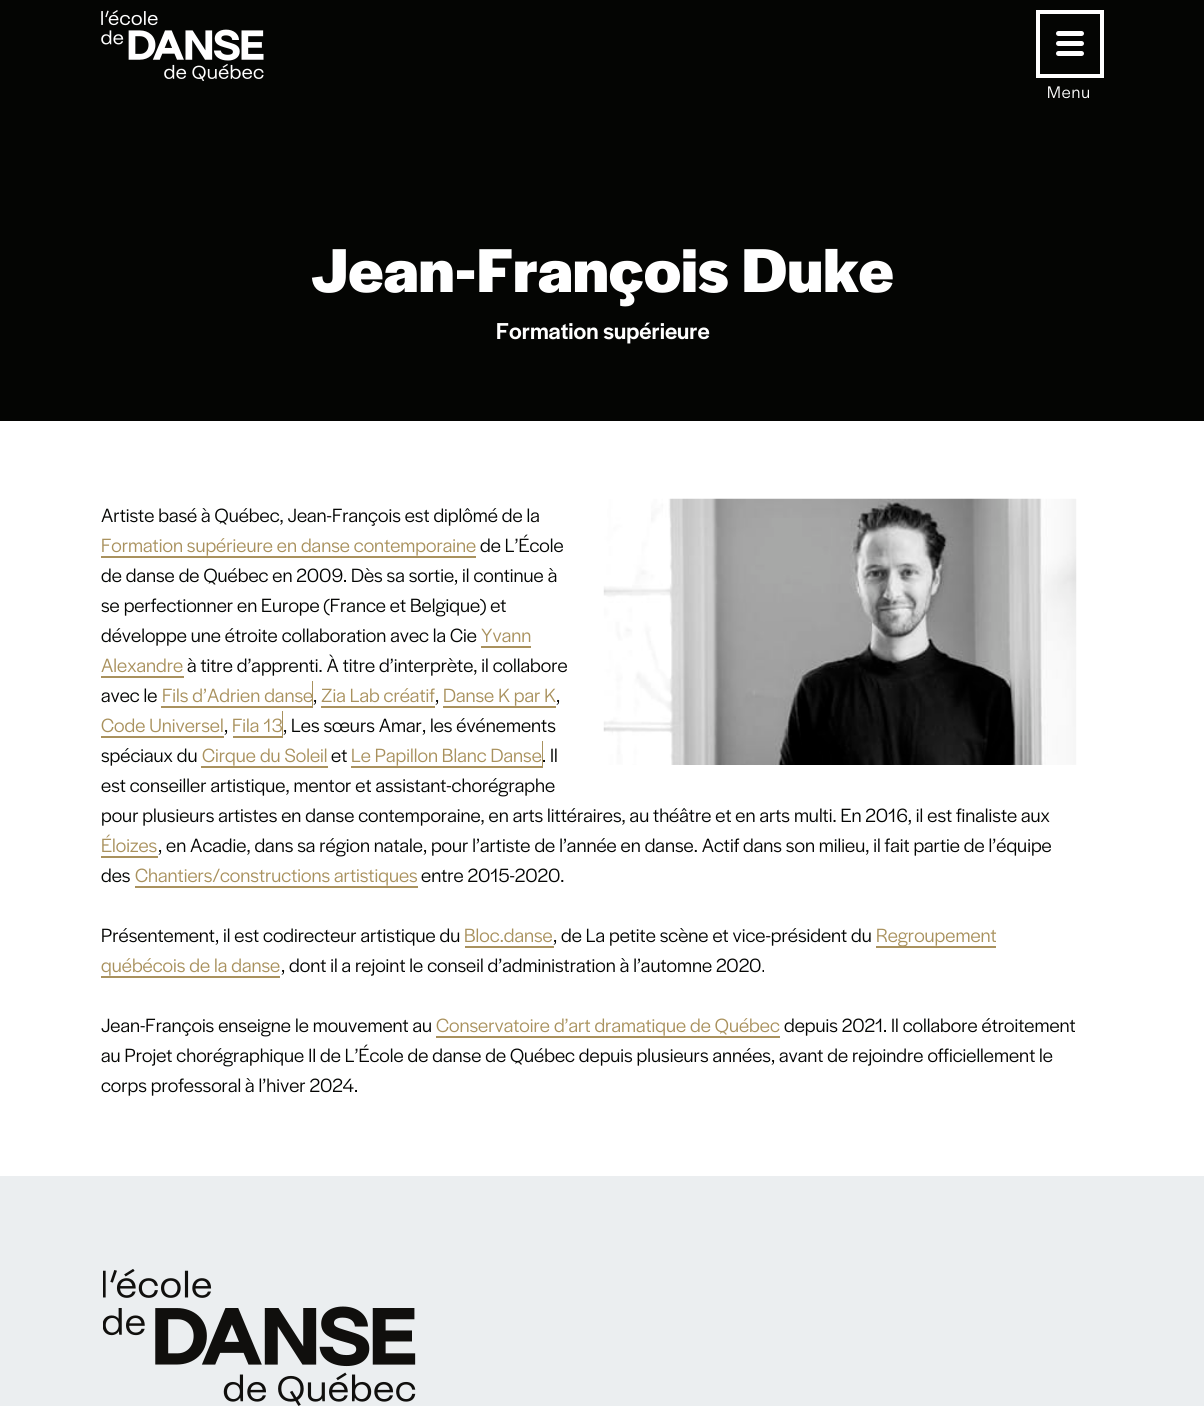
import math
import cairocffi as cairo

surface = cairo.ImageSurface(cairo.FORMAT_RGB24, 1204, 1406)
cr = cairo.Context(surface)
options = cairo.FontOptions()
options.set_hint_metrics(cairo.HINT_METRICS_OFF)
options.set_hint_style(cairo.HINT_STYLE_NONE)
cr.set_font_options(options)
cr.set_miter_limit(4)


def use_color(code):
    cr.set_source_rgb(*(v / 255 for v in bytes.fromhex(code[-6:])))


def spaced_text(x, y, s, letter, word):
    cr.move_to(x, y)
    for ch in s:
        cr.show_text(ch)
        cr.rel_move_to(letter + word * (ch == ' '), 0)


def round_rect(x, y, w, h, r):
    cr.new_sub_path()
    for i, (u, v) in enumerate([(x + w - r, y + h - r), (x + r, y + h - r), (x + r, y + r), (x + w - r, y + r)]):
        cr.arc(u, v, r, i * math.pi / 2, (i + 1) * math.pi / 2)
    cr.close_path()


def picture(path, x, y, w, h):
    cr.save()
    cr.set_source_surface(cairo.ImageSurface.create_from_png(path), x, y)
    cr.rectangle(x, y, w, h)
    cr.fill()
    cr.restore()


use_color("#040503")
cr.paint()
picture("img1.png", 101, 10, 163, 71)
cr.rectangle(1038, 12, 64, 64)
use_color("#ffffff")
cr.set_line_width(4)
cr.stroke()
round_rect(1056, 31, 28, 5, 2.5)
cr.fill()
round_rect(1056, 41, 28, 5, 2.5)
cr.fill()
round_rect(1056, 51, 28, 5, 2.5)
cr.fill()
cr.select_font_face("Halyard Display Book")
cr.set_font_size(17.5)
spaced_text(1047, 98, "Menu", 1, 0)
cr.select_font_face("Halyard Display", cairo.FONT_SLANT_NORMAL, cairo.FONT_WEIGHT_BOLD)
cr.set_font_size(64.5)
cr.move_to(311, 292)
cr.show_text("Jean-François Duke")
cr.select_font_face("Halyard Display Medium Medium")
cr.set_font_size(24)
cr.move_to(496, 339)
cr.show_text("Formation supérieure")
cr.rectangle(0, 421, 1204, 755)
cr.fill()
picture("img2.png", 603, 498, 474, 267)
cr.select_font_face("Halyard Display Book")
cr.set_font_size(20)
use_color("#040503")
cr.move_to(101, 522)
cr.show_text("Artiste basé à Québec, Jean-François est diplômé de la")
use_color("#a9915d")
cr.move_to(101, 552)
cr.show_text("Formation supérieure en danse contemporaine")
cr.new_path()
cr.move_to(101, 531)
cr.line_to(101, 558)
cr.line_to(476, 558)
cr.line_to(476, 556)
cr.line_to(101, 556)
cr.close_path()
cr.fill()
use_color("#040503")
cr.move_to(480, 552)
cr.show_text("de L’École")
cr.move_to(101, 582)
cr.show_text("de danse de Québec en 2009. Dès sa sortie, il continue à")
cr.move_to(101, 612)
cr.show_text("se perfectionner en Europe (France et Belgique) et")
cr.move_to(101, 642)
cr.show_text("développe une étroite collaboration avec la Cie")
use_color("#a9915d")
cr.move_to(481, 642)
cr.show_text("Yvann")
cr.new_path()
cr.move_to(481, 621)
cr.line_to(481, 648)
cr.line_to(531, 648)
cr.line_to(531, 646)
cr.line_to(481, 646)
cr.close_path()
cr.fill()
cr.move_to(101, 672)
cr.show_text("Alexandre")
cr.new_path()
cr.move_to(101, 651)
cr.line_to(101, 678)
cr.line_to(184, 678)
cr.line_to(184, 651)
cr.line_to(184, 676)
cr.line_to(101, 676)
cr.close_path()
cr.fill()
use_color("#040503")
cr.move_to(187, 672)
cr.show_text("à titre d’apprenti. À titre d’interprète, il collabore")
cr.move_to(101, 702)
cr.show_text("avec le")
use_color("#a9915d")
cr.new_path()
cr.move_to(161, 681)
cr.line_to(161, 708)
cr.line_to(313, 708)
cr.line_to(313, 681)
cr.line_to(312, 681)
cr.line_to(312, 706)
cr.line_to(161, 706)
cr.close_path()
cr.fill()
cr.move_to(162, 702)
cr.show_text("Fils d’Adrien danse")
use_color("#040503")
cr.move_to(313, 702)
cr.show_text(",")
use_color("#a9915d")
cr.move_to(321, 702)
cr.show_text("Zia Lab créatif")
cr.new_path()
cr.move_to(321, 681)
cr.line_to(321, 708)
cr.line_to(435, 708)
cr.line_to(435, 706)
cr.line_to(321, 706)
cr.close_path()
cr.fill()
use_color("#040503")
cr.move_to(435, 702)
cr.show_text(",")
use_color("#a9915d")
cr.move_to(443, 702)
cr.show_text("Danse K par K")
cr.rectangle(443, 706, 113, 2)
cr.fill()
use_color("#040503")
cr.move_to(556, 702)
cr.show_text(",")
use_color("#a9915d")
cr.move_to(101, 732)
cr.show_text("Code Universel")
cr.new_path()
cr.move_to(101, 711)
cr.line_to(101, 738)
cr.line_to(224, 738)
cr.line_to(224, 711)
cr.line_to(224, 736)
cr.line_to(101, 736)
cr.close_path()
cr.fill()
use_color("#040503")
cr.move_to(224, 732)
cr.show_text(",")
use_color("#a9915d")
cr.new_path()
cr.move_to(233, 736)
cr.line_to(233, 738)
cr.line_to(283, 738)
cr.line_to(283, 711)
cr.line_to(282, 711)
cr.line_to(282, 736)
cr.close_path()
cr.fill()
cr.move_to(232, 732)
cr.show_text("Fila 13")
use_color("#040503")
cr.move_to(283, 732)
cr.show_text(", Les sœurs Amar, les événements")
cr.move_to(101, 762)
cr.show_text("spéciaux du")
use_color("#a9915d")
cr.move_to(202, 762)
cr.show_text("Cirque du Soleil")
cr.new_path()
cr.move_to(201, 741)
cr.line_to(201, 768)
cr.line_to(328, 768)
cr.line_to(328, 741)
cr.line_to(328, 766)
cr.line_to(201, 766)
cr.close_path()
cr.fill()
use_color("#040503")
cr.move_to(331, 762)
cr.show_text("et")
use_color("#a9915d")
cr.new_path()
cr.move_to(351, 741)
cr.line_to(351, 768)
cr.line_to(543, 768)
cr.line_to(543, 741)
cr.line_to(542, 741)
cr.line_to(542, 766)
cr.line_to(351, 766)
cr.close_path()
cr.fill()
cr.move_to(351, 762)
cr.show_text("Le Papillon Blanc Danse")
use_color("#040503")
cr.move_to(542, 762)
cr.show_text(". Il")
cr.move_to(101, 792)
cr.show_text("est conseiller artistique, mentor et assistant-chorégraphe")
cr.move_to(101, 822)
cr.show_text("pour plusieurs artistes en danse contemporaine, en arts littéraires, au théâtre et en arts multi. En 2016, il est finaliste aux")
use_color("#a9915d")
cr.move_to(101, 852)
cr.show_text("Éloizes")
cr.new_path()
cr.move_to(101, 831)
cr.line_to(101, 858)
cr.line_to(158, 858)
cr.line_to(158, 831)
cr.line_to(158, 856)
cr.line_to(101, 856)
cr.close_path()
cr.fill()
use_color("#040503")
cr.move_to(158, 852)
cr.show_text(", en Acadie, dans sa région natale, pour l’artiste de l’année en danse. Actif dans son milieu, il fait partie de l’équipe")
cr.move_to(101, 882)
cr.show_text("des")
use_color("#a9915d")
cr.move_to(135, 882)
cr.show_text("Chantiers/constructions artistiques")
cr.new_path()
cr.move_to(135, 886)
cr.line_to(135, 888)
cr.line_to(418, 888)
cr.line_to(418, 861)
cr.line_to(418, 886)
cr.close_path()
cr.fill()
use_color("#040503")
cr.move_to(421, 882)
cr.show_text("entre 2015-2020.")
cr.move_to(101, 942)
cr.show_text("Présentement, il est codirecteur artistique du")
use_color("#a9915d")
cr.move_to(464, 942)
cr.show_text("Bloc.danse")
cr.new_path()
cr.move_to(465, 946)
cr.line_to(465, 948)
cr.line_to(554, 948)
cr.line_to(554, 921)
cr.line_to(554, 946)
cr.close_path()
cr.fill()
use_color("#040503")
cr.move_to(553, 942)
cr.show_text(", de La petite scène et vice-président du")
use_color("#a9915d")
cr.new_path()
cr.move_to(876, 921)
cr.line_to(876, 948)
cr.line_to(996, 948)
cr.line_to(996, 946)
cr.line_to(876, 946)
cr.close_path()
cr.fill()
cr.move_to(876, 942)
cr.show_text("Regroupement")
cr.move_to(101, 972)
cr.show_text("québécois de la danse")
cr.new_path()
cr.move_to(101, 951)
cr.line_to(101, 978)
cr.line_to(280, 978)
cr.line_to(280, 976)
cr.line_to(101, 976)
cr.close_path()
cr.fill()
use_color("#040503")
cr.move_to(281, 972)
cr.show_text(", dont il a rejoint le conseil d’administration à l’automne 2020.")
cr.move_to(101, 1032)
cr.show_text("Jean-François enseigne le mouvement au")
use_color("#a9915d")
cr.move_to(436, 1032)
cr.show_text("Conservatoire d’art dramatique de Québec")
cr.new_path()
cr.move_to(436, 1011)
cr.line_to(436, 1038)
cr.line_to(780, 1038)
cr.line_to(780, 1036)
cr.line_to(436, 1036)
cr.close_path()
cr.fill()
use_color("#040503")
cr.move_to(784, 1032)
cr.show_text("depuis 2021. Il collabore étroitement")
cr.move_to(101, 1062)
cr.show_text("au Projet chorégraphique II de L’École de danse de Québec depuis plusieurs années, avant de rejoindre officiellement le")
cr.move_to(101, 1092)
cr.show_text("corps professoral à l’hiver 2024.")
use_color("#ebeef0")
cr.rectangle(0, 1176, 1204, 230)
cr.fill()
picture("img3.png", 103, 1269, 313, 137)
surface.write_to_png("result.png")
